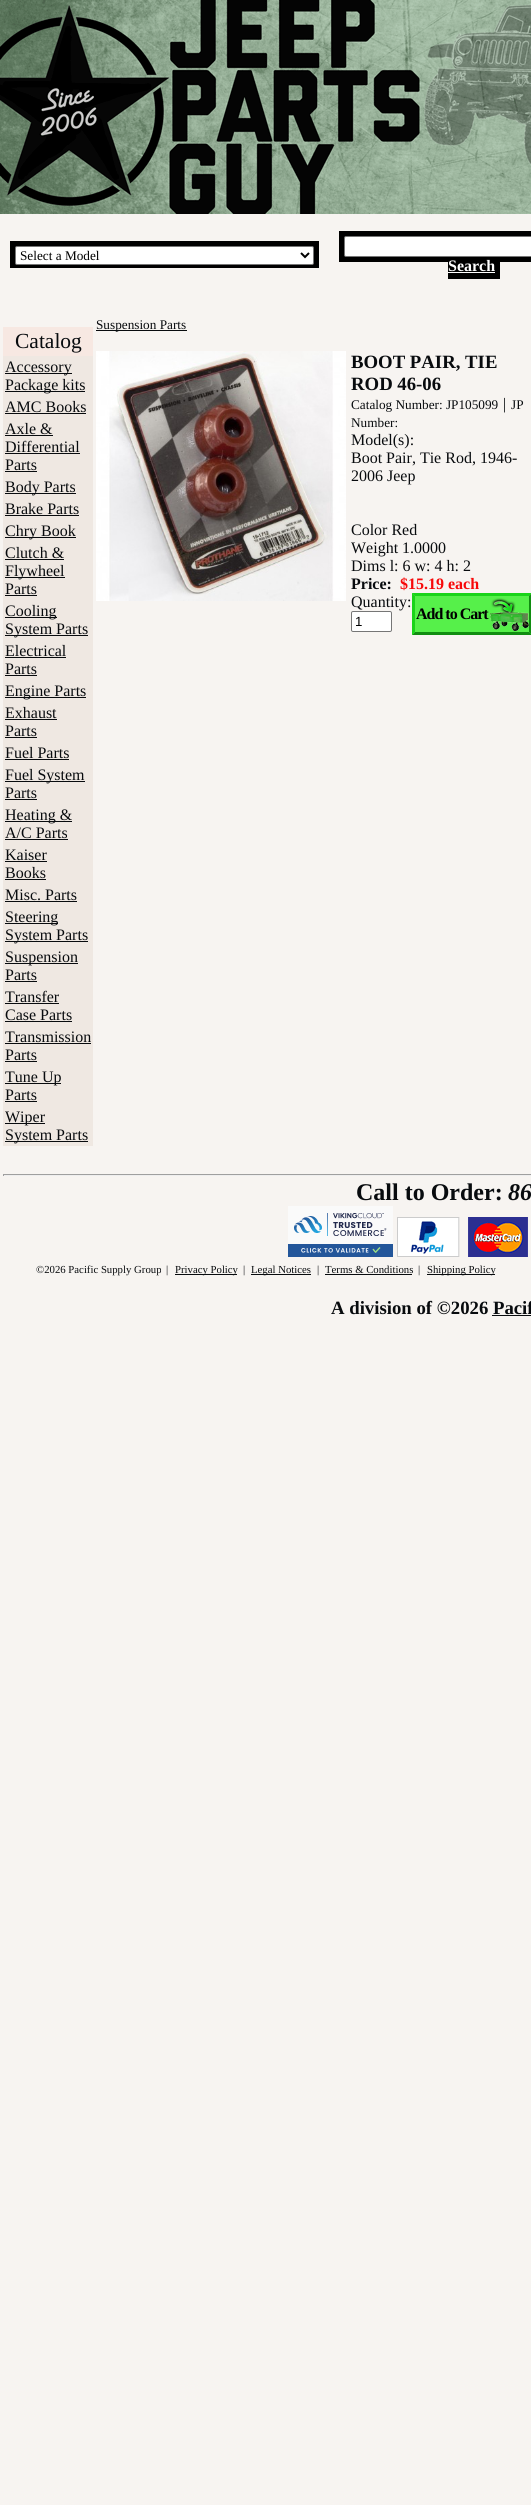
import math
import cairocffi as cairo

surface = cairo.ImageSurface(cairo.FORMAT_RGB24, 531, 2505)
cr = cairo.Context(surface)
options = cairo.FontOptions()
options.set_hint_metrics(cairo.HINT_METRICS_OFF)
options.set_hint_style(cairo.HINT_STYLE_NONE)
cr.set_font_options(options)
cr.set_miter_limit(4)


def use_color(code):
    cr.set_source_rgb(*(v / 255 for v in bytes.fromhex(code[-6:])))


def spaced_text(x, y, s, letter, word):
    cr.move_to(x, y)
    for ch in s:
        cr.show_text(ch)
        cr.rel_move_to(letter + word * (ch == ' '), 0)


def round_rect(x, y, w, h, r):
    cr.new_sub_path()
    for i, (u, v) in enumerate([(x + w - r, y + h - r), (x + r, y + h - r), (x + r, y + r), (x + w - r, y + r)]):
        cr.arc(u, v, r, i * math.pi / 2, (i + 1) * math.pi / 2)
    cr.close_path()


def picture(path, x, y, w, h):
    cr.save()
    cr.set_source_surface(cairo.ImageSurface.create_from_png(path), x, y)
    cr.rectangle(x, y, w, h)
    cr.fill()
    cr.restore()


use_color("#f7f4f1")
cr.paint()
picture("img1.png", 0, 0, 531, 214)
use_color("#000000")
cr.rectangle(10, 241, 309, 27)
cr.fill()
use_color("#ffffff")
round_rect(15.5, 246.5, 298, 18, 1.5)
cr.fill_preserve()
use_color("#767676")
cr.set_line_width(1)
cr.stroke()
cr.new_path()
cr.move_to(301, 253)
cr.line_to(305, 257)
cr.line_to(309, 253)
use_color("#000000")
cr.set_line_width(2)
cr.stroke()
cr.select_font_face("Liberation Serif")
cr.set_font_size(13.25)
cr.move_to(20, 260)
cr.show_text("Select a Model")
cr.rectangle(339, 231, 192, 31)
cr.fill()
cr.rectangle(448, 262, 52, 17)
cr.fill()
use_color("#ffffff")
round_rect(344.5, 236.5, 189, 20, 1.5)
cr.fill_preserve()
use_color("#767676")
cr.set_line_width(1)
cr.stroke()
cr.select_font_face("Liberation Serif", cairo.FONT_SLANT_NORMAL, cairo.FONT_WEIGHT_BOLD)
cr.set_font_size(16)
use_color("#ffffff")
cr.move_to(448, 271)
cr.show_text("Search")
cr.rectangle(448, 272, 47, 1)
cr.fill()
use_color("#f7e8e2")
cr.rectangle(3, 327, 90, 29)
cr.fill()
cr.select_font_face("Liberation Serif")
cr.set_font_size(21.5)
use_color("#080b0e")
cr.move_to(15, 348)
cr.show_text("Catalog")
use_color("#efe8e2")
cr.rectangle(3, 356, 90, 790)
cr.fill()
use_color("#080b0e")
cr.rectangle(5, 373, 67, 1)
cr.fill()
cr.set_font_size(16)
cr.move_to(5, 372)
cr.show_text("Accessory")
cr.rectangle(5, 391, 80, 1)
cr.fill()
cr.move_to(5, 390)
cr.show_text("Package kits")
cr.move_to(5, 412)
cr.show_text("AMC Books")
cr.rectangle(5, 413, 81, 1)
cr.fill()
cr.move_to(5, 434)
cr.show_text("Axle &")
cr.rectangle(5, 435, 48, 1)
cr.fill()
cr.move_to(5, 452)
cr.show_text("Differential")
cr.rectangle(5, 453, 75, 1)
cr.fill()
cr.move_to(5, 470)
cr.show_text("Parts")
cr.rectangle(5, 471, 32, 1)
cr.fill()
cr.rectangle(5, 493, 71, 1)
cr.fill()
cr.move_to(5, 492)
cr.show_text("Body Parts")
cr.move_to(5, 514)
cr.show_text("Brake Parts")
cr.rectangle(5, 515, 74, 1)
cr.fill()
cr.rectangle(5, 537, 71, 1)
cr.fill()
cr.move_to(5, 536)
cr.show_text("Chry Book")
cr.move_to(5, 558)
cr.show_text("Clutch &")
cr.rectangle(5, 559, 59, 1)
cr.fill()
cr.rectangle(5, 577, 60, 1)
cr.fill()
cr.move_to(5, 576)
cr.show_text("Flywheel")
cr.move_to(5, 594)
cr.show_text("Parts")
cr.rectangle(5, 595, 32, 1)
cr.fill()
cr.rectangle(5, 617, 52, 1)
cr.fill()
cr.move_to(5, 616)
cr.show_text("Cooling")
cr.rectangle(5, 635, 83, 1)
cr.fill()
cr.move_to(5, 634)
cr.show_text("System Parts")
cr.move_to(5, 656)
cr.show_text("Electrical")
cr.rectangle(5, 657, 61, 1)
cr.fill()
cr.move_to(5, 674)
cr.show_text("Parts")
cr.rectangle(5, 675, 32, 1)
cr.fill()
cr.rectangle(5, 697, 81, 1)
cr.fill()
cr.move_to(5, 696)
cr.show_text("Engine Parts")
cr.move_to(5, 718)
cr.show_text("Exhaust")
cr.rectangle(5, 719, 52, 1)
cr.fill()
cr.move_to(5, 736)
cr.show_text("Parts")
cr.rectangle(5, 737, 32, 1)
cr.fill()
cr.move_to(5, 758)
cr.show_text("Fuel Parts")
cr.rectangle(5, 759, 64, 1)
cr.fill()
cr.rectangle(5, 781, 80, 1)
cr.fill()
cr.move_to(5, 780)
cr.show_text("Fuel System")
cr.move_to(5, 798)
cr.show_text("Parts")
cr.rectangle(5, 799, 32, 1)
cr.fill()
cr.rectangle(5, 821, 67, 1)
cr.fill()
cr.move_to(5, 820)
cr.show_text("Heating &")
cr.move_to(5, 838)
cr.show_text("A/C Parts")
cr.rectangle(5, 839, 63, 1)
cr.fill()
cr.move_to(5, 860)
cr.show_text("Kaiser")
cr.rectangle(5, 861, 42, 1)
cr.fill()
cr.move_to(5, 878)
cr.show_text("Books")
cr.rectangle(5, 879, 41, 1)
cr.fill()
cr.move_to(5, 900)
cr.show_text("Misc. Parts")
cr.rectangle(5, 901, 72, 1)
cr.fill()
cr.rectangle(5, 923, 53, 1)
cr.fill()
cr.move_to(5, 922)
cr.show_text("Steering")
cr.rectangle(5, 941, 83, 1)
cr.fill()
cr.move_to(5, 940)
cr.show_text("System Parts")
cr.rectangle(5, 963, 73, 1)
cr.fill()
cr.move_to(5, 962)
cr.show_text("Suspension")
cr.move_to(5, 980)
cr.show_text("Parts")
cr.rectangle(5, 981, 32, 1)
cr.fill()
cr.move_to(5, 1002)
cr.show_text("Transfer")
cr.rectangle(5, 1003, 54, 1)
cr.fill()
cr.move_to(5, 1020)
cr.show_text("Case Parts")
cr.rectangle(5, 1021, 67, 1)
cr.fill()
cr.move_to(5, 1042)
cr.show_text("Transmission")
cr.rectangle(5, 1043, 86, 1)
cr.fill()
cr.move_to(5, 1060)
cr.show_text("Parts")
cr.rectangle(5, 1061, 32, 1)
cr.fill()
cr.rectangle(5, 1083, 56, 1)
cr.fill()
cr.move_to(5, 1082)
cr.show_text("Tune Up")
cr.move_to(5, 1100)
cr.show_text("Parts")
cr.rectangle(5, 1101, 32, 1)
cr.fill()
cr.rectangle(5, 1123, 40, 1)
cr.fill()
cr.move_to(5, 1122)
cr.show_text("Wiper")
cr.rectangle(5, 1141, 83, 1)
cr.fill()
cr.move_to(5, 1140)
cr.show_text("System Parts")
cr.rectangle(96, 330, 91, 1)
cr.fill()
cr.set_font_size(13.25)
cr.move_to(96, 329)
cr.show_text("Suspension Parts")
picture("img2.png", 96, 351, 250, 250)
cr.select_font_face("Liberation Serif", cairo.FONT_SLANT_NORMAL, cairo.FONT_WEIGHT_BOLD)
cr.set_font_size(18.75)
cr.move_to(351, 368)
cr.show_text("BOOT PAIR, TIE")
cr.move_to(351, 390)
cr.show_text("ROD 46-06")
cr.select_font_face("Liberation Serif")
cr.set_font_size(13.25)
cr.move_to(351, 409)
cr.show_text("Catalog Number: JP105099")
cr.set_font_size(16)
cr.move_to(503, 409)
cr.show_text("|")
cr.set_font_size(13.25)
cr.move_to(511, 409)
cr.show_text("JP")
cr.move_to(351, 427)
cr.show_text("Number:")
cr.set_font_size(16)
cr.move_to(351, 445)
cr.show_text("Model(s):")
cr.move_to(351, 463)
cr.show_text("Boot Pair, Tie Rod, 1946-")
cr.move_to(351, 481)
cr.show_text("2006 Jeep")
cr.move_to(351, 535)
cr.show_text("Color Red")
cr.move_to(351, 553)
cr.show_text("Weight 1.0000")
cr.move_to(351, 571)
cr.show_text("Dims l: 6 w: 4 h: 2")
cr.select_font_face("Liberation Serif", cairo.FONT_SLANT_NORMAL, cairo.FONT_WEIGHT_BOLD)
cr.move_to(351, 589)
cr.show_text("Price:")
use_color("#f70909")
cr.move_to(400, 589)
cr.show_text("$15.19 each")
cr.select_font_face("Liberation Serif")
use_color("#080b0e")
cr.move_to(351, 607)
cr.show_text("Quantity:")
use_color("#ffffff")
round_rect(351.5, 611.5, 40, 20, 1.5)
cr.fill_preserve()
use_color("#767676")
cr.stroke()
cr.select_font_face("Liberation Sans")
cr.set_font_size(13.25)
use_color("#000000")
cr.move_to(355, 626)
cr.show_text("1")
use_color("#56f04a")
cr.rectangle(412, 593, 119, 42)
cr.fill()
picture("img3.png", 490, 598, 39, 33)
use_color("#19d419")
cr.new_path()
cr.move_to(412, 593)
cr.line_to(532, 593)
cr.line_to(529, 596)
cr.line_to(415, 596)
cr.close_path()
cr.fill()
use_color("#118d11")
cr.new_path()
cr.move_to(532, 593)
cr.line_to(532, 635)
cr.line_to(529, 632)
cr.line_to(529, 596)
cr.close_path()
cr.fill()
cr.new_path()
cr.move_to(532, 635)
cr.line_to(412, 635)
cr.line_to(415, 632)
cr.line_to(529, 632)
cr.close_path()
cr.fill()
use_color("#19d419")
cr.new_path()
cr.move_to(412, 635)
cr.line_to(412, 593)
cr.line_to(415, 596)
cr.line_to(415, 632)
cr.close_path()
cr.fill()
cr.select_font_face("Liberation Serif", cairo.FONT_SLANT_NORMAL, cairo.FONT_WEIGHT_BOLD)
cr.set_font_size(16)
use_color("#000000")
spaced_text(416, 619, "Add to Cart", -1, 0)
use_color("#9f9f9f")
cr.rectangle(3, 1174, 528, 1)
cr.fill()
use_color("#eeeeee")
cr.rectangle(3, 1175, 528, 1)
cr.fill()
use_color("#9f9f9f")
cr.rectangle(3, 1174, 1, 2)
cr.fill()
cr.set_font_size(24)
use_color("#080b0e")
cr.move_to(356, 1200)
cr.show_text("Call to Order:")
cr.select_font_face("Liberation Serif", cairo.FONT_SLANT_ITALIC, cairo.FONT_WEIGHT_BOLD)
cr.move_to(508, 1200)
cr.show_text("86")
picture("img4.png", 288, 1206, 105, 51)
picture("img5.png", 397, 1217, 131, 40)
cr.select_font_face("Liberation Serif")
cr.set_font_size(10.75)
cr.move_to(36, 1273)
cr.show_text("©2026 Pacific Supply Group")
cr.move_to(166, 1273)
cr.show_text("|")
cr.rectangle(175, 1274, 62, 1)
cr.fill()
cr.move_to(175, 1273)
cr.show_text("Privacy Policy")
cr.move_to(243, 1273)
cr.show_text("|")
cr.rectangle(251, 1274, 60, 1)
cr.fill()
cr.move_to(251, 1273)
cr.show_text("Legal Notices")
cr.move_to(317, 1273)
cr.show_text("|")
cr.move_to(325, 1273)
cr.show_text("Terms & Conditions")
cr.rectangle(325, 1274, 87, 1)
cr.fill()
cr.move_to(418, 1273)
cr.show_text("|")
cr.rectangle(427, 1274, 68, 1)
cr.fill()
cr.move_to(427, 1273)
cr.show_text("Shipping Policy")
cr.select_font_face("Liberation Serif", cairo.FONT_SLANT_NORMAL, cairo.FONT_WEIGHT_BOLD)
cr.set_font_size(18.75)
cr.move_to(331, 1314)
cr.show_text("A division of ©2026 Pacif")
cr.rectangle(492, 1315, 39, 1)
cr.fill()
surface.write_to_png("result.png")
